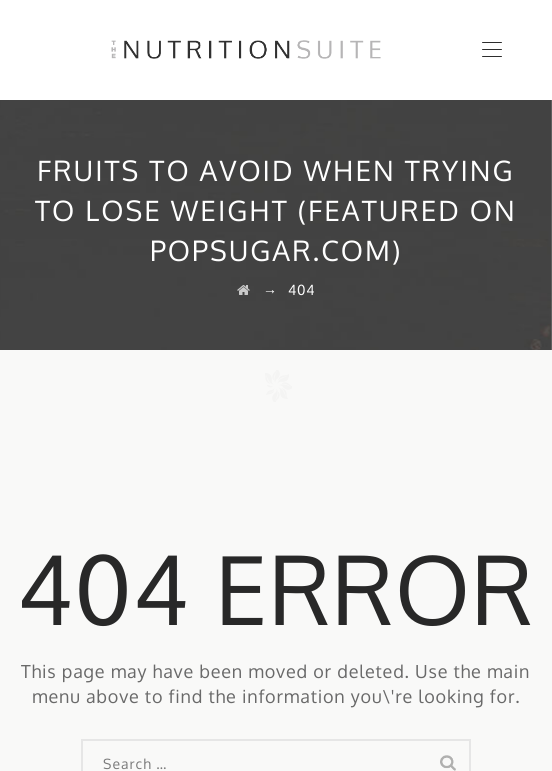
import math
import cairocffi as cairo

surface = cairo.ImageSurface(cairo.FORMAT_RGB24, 552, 771)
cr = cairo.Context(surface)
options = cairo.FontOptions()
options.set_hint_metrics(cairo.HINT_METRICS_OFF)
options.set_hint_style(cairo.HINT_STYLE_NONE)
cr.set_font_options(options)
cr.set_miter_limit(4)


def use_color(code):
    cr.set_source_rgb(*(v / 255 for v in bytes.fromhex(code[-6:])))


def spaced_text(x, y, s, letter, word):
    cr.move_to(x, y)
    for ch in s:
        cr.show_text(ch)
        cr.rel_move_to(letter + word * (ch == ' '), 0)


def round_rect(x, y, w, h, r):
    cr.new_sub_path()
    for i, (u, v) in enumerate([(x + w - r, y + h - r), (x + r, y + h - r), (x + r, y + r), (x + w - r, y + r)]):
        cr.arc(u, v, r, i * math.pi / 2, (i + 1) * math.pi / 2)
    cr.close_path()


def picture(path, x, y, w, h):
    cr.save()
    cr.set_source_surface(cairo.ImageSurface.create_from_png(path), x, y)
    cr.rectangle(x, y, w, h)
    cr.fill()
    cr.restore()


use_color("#f9f9f8")
cr.paint()
use_color("#ffffff")
cr.rectangle(0, 0, 552, 100)
cr.fill()
picture("img1.png", 111, 40, 270, 19)
use_color("#2d2d2d")
round_rect(482, 49, 20, 1, 0.5)
cr.fill()
round_rect(482, 42, 20, 1, 0.5)
cr.fill()
round_rect(482, 56, 20, 1, 0.5)
cr.fill()
picture("img2.png", 0, 100, 552, 250)
cr.select_font_face("Oxygen")
cr.set_font_size(28)
use_color("#ffffff")
spaced_text(37, 181, "FRUITS TO AVOID WHEN TRYING", 2, 0)
spaced_text(35, 221, "TO LOSE WEIGHT (FEATURED ON", 2, 0)
spaced_text(150, 261, "POPSUGAR.COM)", 2, 0)
picture("img3.png", 237, 285, 13, 10)
cr.select_font_face("Liberation Sans")
cr.set_font_size(14)
spaced_text(263, 294, "→", 0.8, 0)
cr.select_font_face("Oxygen")
spaced_text(288, 295, "404", 0.8, 0)
cr.set_font_size(95)
use_color("#282828")
spaced_text(17, 625, "404 ERROR", 1, 0)
cr.set_font_size(18)
use_color("#696969")
spaced_text(21, 678, "This page may have been moved or deleted. Use the main", 0.8, 0)
spaced_text(32, 703, "menu above to find the information you\\'re looking for.", 0.8, 0)
cr.rectangle(82, 740, 388, 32)
use_color("#e6e6e6")
cr.stroke()
cr.set_font_size(14)
use_color("#797979")
spaced_text(103, 769, "Search …", 1, 0)
picture("img4.png", 440, 755, 16, 16)
picture("img5.png", 265, 370, 27, 32)
surface.write_to_png("result.png")
